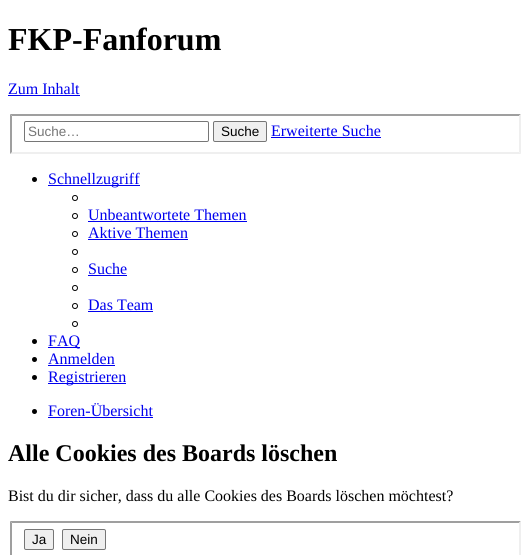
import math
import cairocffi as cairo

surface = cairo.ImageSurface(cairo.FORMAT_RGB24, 531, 555)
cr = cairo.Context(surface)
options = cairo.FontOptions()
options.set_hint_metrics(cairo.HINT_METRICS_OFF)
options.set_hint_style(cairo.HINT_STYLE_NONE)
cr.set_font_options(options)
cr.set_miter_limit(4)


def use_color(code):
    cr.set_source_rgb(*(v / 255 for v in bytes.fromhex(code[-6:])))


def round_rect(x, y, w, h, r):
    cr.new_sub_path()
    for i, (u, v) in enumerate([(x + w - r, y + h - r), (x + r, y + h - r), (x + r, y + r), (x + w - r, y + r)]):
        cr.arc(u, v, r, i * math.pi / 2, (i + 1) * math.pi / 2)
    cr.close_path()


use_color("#ffffff")
cr.paint()
cr.select_font_face("Liberation Serif", cairo.FONT_SLANT_NORMAL, cairo.FONT_WEIGHT_BOLD)
cr.set_font_size(32)
use_color("#000000")
cr.move_to(8, 50)
cr.show_text("FKP-Fanforum")
cr.select_font_face("Liberation Serif")
cr.set_font_size(16)
use_color("#0000ee")
cr.move_to(8, 94)
cr.show_text("Zum Inhalt")
cr.rectangle(8, 95, 72, 1)
cr.fill()
use_color("#9f9f9f")
cr.new_path()
cr.move_to(10, 114)
cr.line_to(521, 114)
cr.line_to(519, 116)
cr.line_to(12, 116)
cr.close_path()
cr.fill()
use_color("#efefef")
cr.new_path()
cr.move_to(521, 114)
cr.line_to(521, 154)
cr.line_to(519, 152)
cr.line_to(519, 116)
cr.close_path()
cr.fill()
cr.new_path()
cr.move_to(521, 154)
cr.line_to(10, 154)
cr.line_to(12, 152)
cr.line_to(519, 152)
cr.close_path()
cr.fill()
use_color("#9f9f9f")
cr.new_path()
cr.move_to(10, 154)
cr.line_to(10, 114)
cr.line_to(12, 116)
cr.line_to(12, 152)
cr.close_path()
cr.fill()
round_rect(24.5, 121.5, 184, 20, 1.5)
use_color("#767676")
cr.set_line_width(1)
cr.stroke()
cr.select_font_face("Liberation Sans")
cr.set_font_size(13.5)
use_color("#757575")
cr.move_to(28, 136)
cr.show_text("Suche…")
use_color("#efefef")
round_rect(213.5, 121.5, 53, 20, 1.5)
cr.fill_preserve()
use_color("#767676")
cr.stroke()
use_color("#000000")
cr.move_to(221, 136)
cr.show_text("Suche")
cr.select_font_face("Liberation Serif")
cr.set_font_size(16)
use_color("#0000ee")
cr.move_to(271, 136)
cr.show_text("Erweiterte Suche")
cr.rectangle(271, 137, 110, 1)
cr.fill()
use_color("#000000")
cr.arc(34.5, 179.5, 2.5, 0, 2 * math.pi)
cr.fill()
use_color("#0000ee")
cr.rectangle(48, 185, 92, 1)
cr.fill()
cr.move_to(48, 184)
cr.show_text("Schnellzugriff")
cr.new_path()
cr.arc(75, 198, 2.5, 0, 2 * math.pi)
use_color("#000000")
cr.stroke()
cr.arc(75, 216, 2.5, 0, 2 * math.pi)
cr.stroke()
use_color("#0000ee")
cr.move_to(88, 220)
cr.show_text("Unbeantwortete Themen")
cr.rectangle(88, 221, 159, 1)
cr.fill()
cr.arc(75, 234, 2.5, 0, 2 * math.pi)
use_color("#000000")
cr.stroke()
use_color("#0000ee")
cr.move_to(88, 238)
cr.show_text("Aktive Themen")
cr.rectangle(88, 239, 100, 1)
cr.fill()
cr.arc(75, 252, 2.5, 0, 2 * math.pi)
use_color("#000000")
cr.stroke()
cr.arc(75, 270, 2.5, 0, 2 * math.pi)
cr.stroke()
use_color("#0000ee")
cr.move_to(88, 274)
cr.show_text("Suche")
cr.rectangle(88, 275, 39, 1)
cr.fill()
cr.arc(75, 288, 2.5, 0, 2 * math.pi)
use_color("#000000")
cr.stroke()
cr.arc(75, 306, 2.5, 0, 2 * math.pi)
cr.stroke()
use_color("#0000ee")
cr.move_to(88, 310)
cr.show_text("Das Team")
cr.rectangle(88, 311, 65, 1)
cr.fill()
cr.arc(75, 324, 2.5, 0, 2 * math.pi)
use_color("#000000")
cr.stroke()
cr.arc(34.5, 341.5, 2.5, 0, 2 * math.pi)
cr.fill()
use_color("#0000ee")
cr.rectangle(48, 347, 32, 1)
cr.fill()
cr.move_to(48, 346)
cr.show_text("FAQ")
use_color("#000000")
cr.new_path()
cr.arc(34.5, 359.5, 2.5, 0, 2 * math.pi)
cr.fill()
use_color("#0000ee")
cr.move_to(48, 364)
cr.show_text("Anmelden")
cr.rectangle(48, 365, 67, 1)
cr.fill()
use_color("#000000")
cr.arc(34.5, 377.5, 2.5, 0, 2 * math.pi)
cr.fill()
use_color("#0000ee")
cr.rectangle(48, 383, 78, 1)
cr.fill()
cr.move_to(48, 382)
cr.show_text("Registrieren")
use_color("#000000")
cr.new_path()
cr.arc(34.5, 411.5, 2.5, 0, 2 * math.pi)
cr.fill()
use_color("#0000ee")
cr.move_to(48, 416)
cr.show_text("Foren-Übersicht")
cr.rectangle(48, 417, 105, 1)
cr.fill()
cr.select_font_face("Liberation Serif", cairo.FONT_SLANT_NORMAL, cairo.FONT_WEIGHT_BOLD)
cr.set_font_size(24)
use_color("#000000")
cr.move_to(8, 461)
cr.show_text("Alle Cookies des Boards löschen")
cr.select_font_face("Liberation Serif")
cr.set_font_size(16)
cr.move_to(8, 501)
cr.show_text("Bist du dir sicher, dass du alle Cookies des Boards löschen möchtest?")
use_color("#9f9f9f")
cr.new_path()
cr.move_to(10, 521)
cr.line_to(521, 521)
cr.line_to(519, 523)
cr.line_to(12, 523)
cr.close_path()
cr.fill()
use_color("#efefef")
cr.new_path()
cr.move_to(521, 521)
cr.line_to(521, 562)
cr.line_to(519, 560)
cr.line_to(519, 523)
cr.close_path()
cr.fill()
use_color("#9f9f9f")
cr.new_path()
cr.move_to(10, 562)
cr.line_to(10, 521)
cr.line_to(12, 523)
cr.line_to(12, 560)
cr.close_path()
cr.fill()
use_color("#efefef")
round_rect(24.5, 529.5, 29, 20, 1.5)
cr.fill_preserve()
use_color("#767676")
cr.stroke()
cr.select_font_face("Liberation Sans")
cr.set_font_size(13.5)
use_color("#000000")
cr.move_to(32, 544)
cr.show_text("Ja")
use_color("#efefef")
round_rect(62.5, 529.5, 43, 20, 1.5)
cr.fill_preserve()
use_color("#767676")
cr.stroke()
use_color("#000000")
cr.move_to(70, 544)
cr.show_text("Nein")
surface.write_to_png("result.png")
